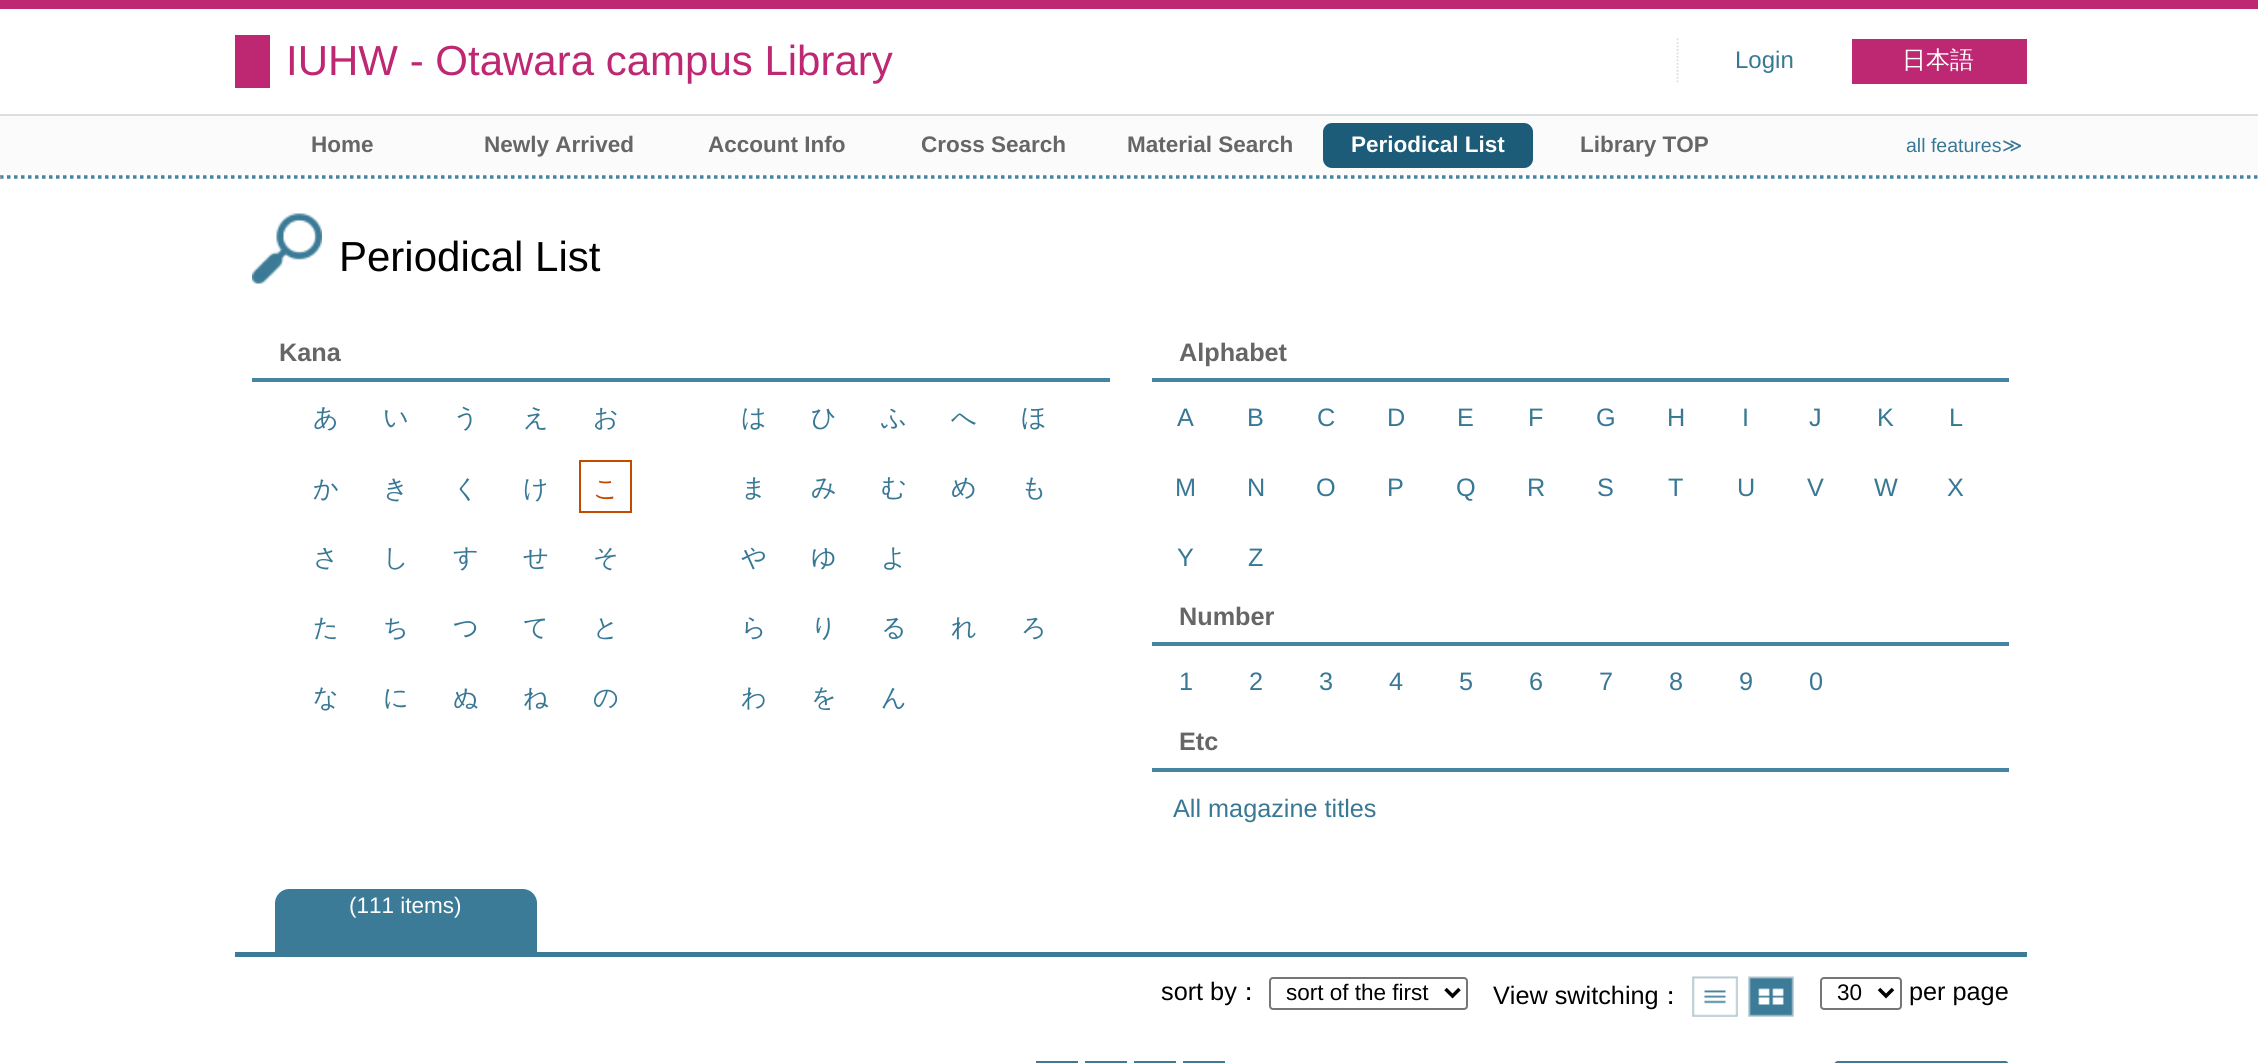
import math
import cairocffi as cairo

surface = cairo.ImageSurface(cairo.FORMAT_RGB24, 2258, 1063)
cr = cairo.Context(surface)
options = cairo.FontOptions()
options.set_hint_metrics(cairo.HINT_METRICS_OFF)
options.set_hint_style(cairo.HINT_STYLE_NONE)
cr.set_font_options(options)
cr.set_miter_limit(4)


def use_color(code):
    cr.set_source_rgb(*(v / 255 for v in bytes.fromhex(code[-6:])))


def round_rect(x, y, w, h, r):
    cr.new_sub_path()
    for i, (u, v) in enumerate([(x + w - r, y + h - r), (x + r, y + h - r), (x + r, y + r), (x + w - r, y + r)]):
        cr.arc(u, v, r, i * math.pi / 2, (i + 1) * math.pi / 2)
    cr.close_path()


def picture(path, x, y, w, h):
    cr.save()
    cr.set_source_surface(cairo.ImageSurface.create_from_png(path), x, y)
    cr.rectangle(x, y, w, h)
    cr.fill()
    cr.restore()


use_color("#ffffff")
cr.paint()
use_color("#be2772")
cr.rectangle(0, 0, 2258, 9)
cr.fill()
cr.rectangle(235, 35, 35, 53)
cr.fill()
cr.select_font_face("Liberation Sans")
cr.set_font_size(42)
cr.move_to(286, 75)
cr.show_text("IUHW - Otawara campus Library")
cr.new_path()
cr.move_to(1677.5, 38.5)
cr.line_to(1677.5, 84)
use_color("#dddddd")
cr.set_line_width(1.8)
cr.set_dash([1.75, 1.75])
cr.stroke()
cr.set_font_size(24)
use_color("#387895")
cr.move_to(1735, 68)
cr.show_text("Login")
use_color("#be2772")
cr.rectangle(1852, 39, 175, 45)
cr.fill()
cr.select_font_face("WenQuanYi Zen Hei Medium")
use_color("#ffffff")
cr.move_to(1902, 68)
cr.show_text("日本語")
use_color("#fbfbfb")
cr.rectangle(0, 116, 2258, 59)
cr.fill()
use_color("#dddddd")
cr.rectangle(0, 114, 2258, 2)
cr.fill()
cr.select_font_face("Liberation Sans", cairo.FONT_SLANT_NORMAL, cairo.FONT_WEIGHT_BOLD)
cr.set_font_size(22.5)
use_color("#666666")
cr.move_to(311, 152)
cr.show_text("Home")
cr.move_to(484, 152)
cr.show_text("Newly Arrived")
cr.move_to(708, 152)
cr.show_text("Account Info")
cr.move_to(921, 152)
cr.show_text("Cross Search")
cr.move_to(1127, 152)
cr.show_text("Material Search")
use_color("#1c5c79")
round_rect(1323, 123, 210, 45, 9)
cr.fill()
use_color("#ffffff")
cr.move_to(1351, 152)
cr.show_text("Periodical List")
use_color("#666666")
cr.move_to(1580, 152)
cr.show_text("Library TOP")
cr.select_font_face("Liberation Sans")
cr.set_font_size(19.5)
use_color("#387895")
cr.move_to(1906, 152)
cr.show_text("all features")
cr.select_font_face("DejaVu Sans")
cr.move_to(2002, 152)
cr.show_text("≫")
cr.new_path()
cr.move_to(0, 177)
cr.line_to(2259, 177)
use_color("#4583a1")
cr.set_line_width(3.5)
cr.set_dash([3.5, 3.5])
cr.stroke()
use_color("#eeeeee")
cr.new_path()
cr.move_to(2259, 175)
cr.line_to(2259, 178.5)
cr.line_to(2257.5, 178.5)
cr.close_path()
cr.fill()
use_color("#9f9f9f")
cr.new_path()
cr.move_to(0, 178.5)
cr.line_to(0, 175)
cr.line_to(2, 178.5)
cr.close_path()
cr.fill()
picture("img1.png", 252, 213, 70, 71)
cr.select_font_face("Liberation Sans")
cr.set_font_size(42)
use_color("#000000")
cr.move_to(339, 271)
cr.show_text("Periodical List")
use_color("#4584a2")
cr.rectangle(252, 378, 858, 4)
cr.fill()
cr.select_font_face("Liberation Sans", cairo.FONT_SLANT_NORMAL, cairo.FONT_WEIGHT_BOLD)
cr.set_font_size(25.25)
use_color("#666666")
cr.move_to(279, 361)
cr.show_text("Kana")
cr.select_font_face("WenQuanYi Zen Hei Medium")
use_color("#387895")
cr.move_to(313, 426)
cr.show_text("あ")
cr.move_to(383, 426)
cr.show_text("い")
cr.move_to(453, 426)
cr.show_text("う")
cr.move_to(523, 426)
cr.show_text("え")
cr.move_to(593, 426)
cr.show_text("お")
cr.move_to(741, 426)
cr.show_text("は")
cr.move_to(811, 426)
cr.show_text("ひ")
cr.move_to(881, 426)
cr.show_text("ふ")
cr.move_to(951, 426)
cr.show_text("へ")
cr.move_to(1021, 426)
cr.show_text("ほ")
cr.move_to(313, 497)
cr.show_text("か")
cr.move_to(383, 497)
cr.show_text("き")
cr.move_to(453, 497)
cr.show_text("く")
cr.move_to(523, 497)
cr.show_text("け")
cr.rectangle(580, 461, 51, 51)
use_color("#c34b00")
cr.set_line_width(2)
cr.set_dash([])
cr.stroke()
cr.move_to(593, 497)
cr.show_text("こ")
use_color("#387895")
cr.move_to(741, 496)
cr.show_text("ま")
cr.move_to(811, 496)
cr.show_text("み")
cr.move_to(881, 496)
cr.show_text("む")
cr.move_to(951, 496)
cr.show_text("め")
cr.move_to(1021, 496)
cr.show_text("も")
cr.move_to(313, 566)
cr.show_text("さ")
cr.move_to(383, 566)
cr.show_text("し")
cr.move_to(453, 566)
cr.show_text("す")
cr.move_to(523, 566)
cr.show_text("せ")
cr.move_to(593, 566)
cr.show_text("そ")
cr.move_to(741, 566)
cr.show_text("や")
cr.move_to(811, 566)
cr.show_text("ゆ")
cr.move_to(881, 566)
cr.show_text("よ")
cr.move_to(313, 636)
cr.show_text("た")
cr.move_to(383, 636)
cr.show_text("ち")
cr.move_to(453, 636)
cr.show_text("つ")
cr.move_to(523, 636)
cr.show_text("て")
cr.move_to(593, 636)
cr.show_text("と")
cr.move_to(741, 636)
cr.show_text("ら")
cr.move_to(811, 636)
cr.show_text("り")
cr.move_to(881, 636)
cr.show_text("る")
cr.move_to(951, 636)
cr.show_text("れ")
cr.move_to(1021, 636)
cr.show_text("ろ")
cr.move_to(313, 706)
cr.show_text("な")
cr.move_to(383, 706)
cr.show_text("に")
cr.move_to(453, 706)
cr.show_text("ぬ")
cr.move_to(523, 706)
cr.show_text("ね")
cr.move_to(593, 706)
cr.show_text("の")
cr.move_to(741, 706)
cr.show_text("わ")
cr.move_to(811, 706)
cr.show_text("を")
cr.move_to(881, 706)
cr.show_text("ん")
use_color("#4584a2")
cr.rectangle(1152, 378, 857, 4)
cr.fill()
cr.select_font_face("Liberation Sans", cairo.FONT_SLANT_NORMAL, cairo.FONT_WEIGHT_BOLD)
use_color("#666666")
cr.move_to(1179, 361)
cr.show_text("Alphabet")
cr.select_font_face("Liberation Sans")
use_color("#387895")
cr.move_to(1177, 426)
cr.show_text("A")
cr.move_to(1247, 426)
cr.show_text("B")
cr.move_to(1317, 426)
cr.show_text("C")
cr.move_to(1387, 426)
cr.show_text("D")
cr.move_to(1457, 426)
cr.show_text("E")
cr.move_to(1528, 426)
cr.show_text("F")
cr.move_to(1596, 426)
cr.show_text("G")
cr.move_to(1667, 426)
cr.show_text("H")
cr.move_to(1742, 426)
cr.show_text("I")
cr.move_to(1809, 426)
cr.show_text("J")
cr.move_to(1877, 426)
cr.show_text("K")
cr.move_to(1949, 426)
cr.show_text("L")
cr.move_to(1175, 496)
cr.show_text("M")
cr.move_to(1247, 496)
cr.show_text("N")
cr.move_to(1316, 496)
cr.show_text("O")
cr.move_to(1387, 496)
cr.show_text("P")
cr.move_to(1456, 496)
cr.show_text("Q")
cr.move_to(1527, 496)
cr.show_text("R")
cr.move_to(1597, 496)
cr.show_text("S")
cr.move_to(1668, 496)
cr.show_text("T")
cr.move_to(1737, 496)
cr.show_text("U")
cr.move_to(1807, 496)
cr.show_text("V")
cr.move_to(1874, 496)
cr.show_text("W")
cr.move_to(1947, 496)
cr.show_text("X")
cr.move_to(1177, 566)
cr.show_text("Y")
cr.move_to(1248, 566)
cr.show_text("Z")
use_color("#4584a2")
cr.rectangle(1152, 642, 857, 4)
cr.fill()
cr.select_font_face("Liberation Sans", cairo.FONT_SLANT_NORMAL, cairo.FONT_WEIGHT_BOLD)
use_color("#666666")
cr.move_to(1179, 625)
cr.show_text("Number")
cr.select_font_face("Liberation Sans")
use_color("#387895")
cr.move_to(1179, 690)
cr.show_text("1")
cr.move_to(1249, 690)
cr.show_text("2")
cr.move_to(1319, 690)
cr.show_text("3")
cr.move_to(1389, 690)
cr.show_text("4")
cr.move_to(1459, 690)
cr.show_text("5")
cr.move_to(1529, 690)
cr.show_text("6")
cr.move_to(1599, 690)
cr.show_text("7")
cr.move_to(1669, 690)
cr.show_text("8")
cr.move_to(1739, 690)
cr.show_text("9")
cr.move_to(1809, 690)
cr.show_text("0")
use_color("#4584a2")
cr.rectangle(1152, 768, 857, 4)
cr.fill()
cr.select_font_face("Liberation Sans", cairo.FONT_SLANT_NORMAL, cairo.FONT_WEIGHT_BOLD)
use_color("#666666")
cr.move_to(1179, 750)
cr.show_text("Etc")
cr.select_font_face("Liberation Sans")
use_color("#387895")
cr.move_to(1173, 817)
cr.show_text("All magazine titles")
use_color("#3c7b97")
cr.rectangle(235, 952, 1792, 5)
cr.fill()
cr.new_path()
cr.move_to(289, 889)
cr.line_to(523, 889)
cr.curve_to(530.5, 889, 537, 895.5, 537, 903)
cr.line_to(537, 952)
cr.line_to(275, 952)
cr.line_to(275, 903)
cr.curve_to(275, 895.5, 281.5, 889, 289, 889)
cr.close_path()
cr.fill()
cr.set_font_size(22.5)
use_color("#ffffff")
cr.move_to(349, 913)
cr.show_text("(111 items)")
cr.set_font_size(25.25)
use_color("#000000")
cr.move_to(1161, 1000)
cr.show_text("sort by")
cr.select_font_face("WenQuanYi Zen Hei Medium")
cr.move_to(1236, 1000)
cr.show_text("：")
round_rect(1270, 978, 197, 31, 3)
use_color("#767676")
cr.stroke()
cr.new_path()
cr.move_to(1445.5, 989)
cr.line_to(1452.5, 996)
cr.line_to(1459.5, 989)
use_color("#000000")
cr.set_line_width(3.5)
cr.stroke()
cr.select_font_face("Liberation Sans")
cr.set_font_size(22.5)
cr.move_to(1286, 1000)
cr.show_text("sort of the first")
cr.set_font_size(25.25)
cr.move_to(1493, 1004)
cr.show_text("View switching")
cr.select_font_face("WenQuanYi Zen Hei Medium")
cr.move_to(1658, 1004)
cr.show_text("：")
picture("img2.png", 1692, 976, 46, 41)
picture("img3.png", 1748, 976, 46, 41)
round_rect(1821, 978, 80, 31, 3)
use_color("#767676")
cr.set_line_width(2)
cr.stroke()
cr.new_path()
cr.move_to(1879, 989)
cr.line_to(1886, 996)
cr.line_to(1893, 989)
use_color("#000000")
cr.set_line_width(3.5)
cr.stroke()
cr.select_font_face("Liberation Sans")
cr.set_font_size(22.5)
cr.move_to(1837, 1000)
cr.show_text("30")
cr.set_font_size(25.25)
cr.move_to(1909, 1000)
cr.show_text("per page")
cr.rectangle(1037, 1062, 40, 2)
use_color("#3c7b97")
cr.set_line_width(2)
cr.stroke()
cr.rectangle(1086, 1062, 40, 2)
cr.stroke()
cr.rectangle(1134, 1061, 42, 2)
cr.fill()
cr.rectangle(1184, 1062, 40, 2)
cr.stroke()
round_rect(1834, 1061, 175, 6, 4)
cr.fill()
surface.write_to_png("result.png")
